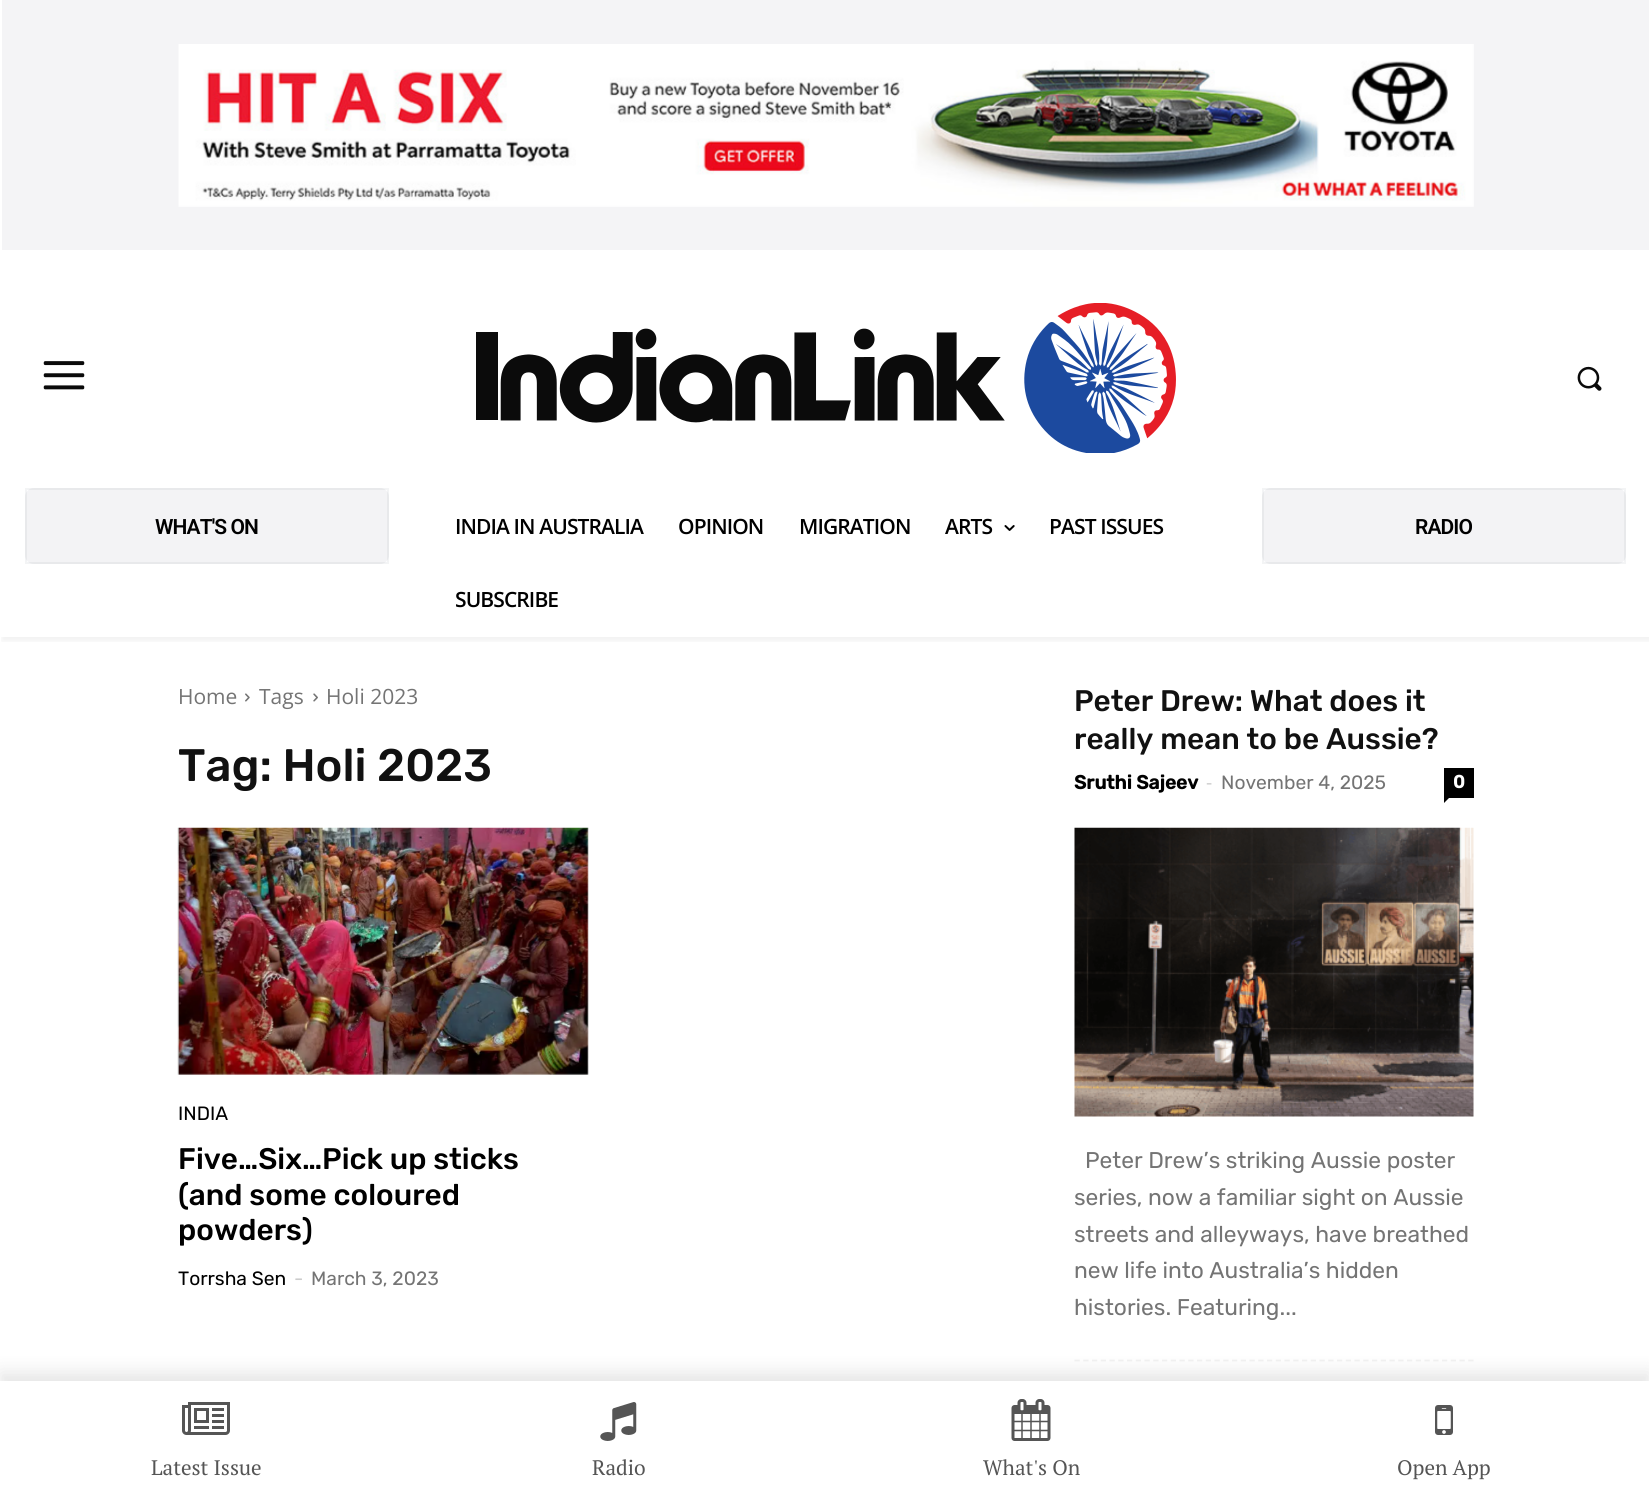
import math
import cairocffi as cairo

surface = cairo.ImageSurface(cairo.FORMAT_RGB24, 1649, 1502)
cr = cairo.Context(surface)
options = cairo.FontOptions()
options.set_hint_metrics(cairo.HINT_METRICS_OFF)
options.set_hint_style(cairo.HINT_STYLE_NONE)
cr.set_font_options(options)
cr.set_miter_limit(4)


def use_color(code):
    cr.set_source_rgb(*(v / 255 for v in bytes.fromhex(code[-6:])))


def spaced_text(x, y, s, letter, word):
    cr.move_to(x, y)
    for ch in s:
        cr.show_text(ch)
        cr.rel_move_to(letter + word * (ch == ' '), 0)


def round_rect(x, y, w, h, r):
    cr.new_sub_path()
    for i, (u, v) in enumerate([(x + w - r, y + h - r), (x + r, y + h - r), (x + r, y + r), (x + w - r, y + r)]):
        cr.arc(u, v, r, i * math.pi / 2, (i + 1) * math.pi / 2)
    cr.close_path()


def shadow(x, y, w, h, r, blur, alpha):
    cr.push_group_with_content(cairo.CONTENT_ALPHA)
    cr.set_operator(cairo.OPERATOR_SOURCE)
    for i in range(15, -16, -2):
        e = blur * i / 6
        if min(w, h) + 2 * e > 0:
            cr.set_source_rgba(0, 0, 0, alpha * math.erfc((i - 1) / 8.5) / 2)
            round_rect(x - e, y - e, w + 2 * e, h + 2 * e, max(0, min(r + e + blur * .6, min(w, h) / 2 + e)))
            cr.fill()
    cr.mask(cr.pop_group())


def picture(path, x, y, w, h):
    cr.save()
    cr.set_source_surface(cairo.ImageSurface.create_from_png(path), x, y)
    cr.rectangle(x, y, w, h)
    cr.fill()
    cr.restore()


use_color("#ffffff")
cr.paint()
use_color("#f4f4f6")
cr.rectangle(2, 0, 1647, 250)
cr.fill()
picture("img1.png", 178, 44, 1296, 163)
picture("img2.png", 43, 361, 42, 29)
picture("img3.png", 476, 303, 700, 150)
picture("img4.png", 1577, 366, 25, 25)
use_color("#f3f3f5")
round_rect(25, 488, 364, 76, 9)
cr.fill()
cr.rectangle(26, 489, 362, 74)
cr.set_source_rgba(0.039, 0.086, 0.2, 0.05)
cr.stroke()
use_color("#f3f3f5")
round_rect(1262, 488, 364, 76, 9)
cr.fill()
cr.rectangle(1263, 489, 362, 74)
cr.set_source_rgba(0.039, 0.086, 0.2, 0.05)
cr.stroke()
cr.save()
cr.rectangle(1, 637, 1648, 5)
cr.clip()
use_color("#000000")
shadow(2, 457, 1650, 184, 0, 3.5, 0.06)
cr.restore()
cr.select_font_face("Roboto SemiBold")
cr.set_font_size(21)
use_color("#000000")
spaced_text(155, 534, "WHAT'S ON", -0.9, 0)
cr.select_font_face("Open Sans SemiBold")
spaced_text(455, 534, "INDIA IN AUSTRALIA", -0.9, 0)
spaced_text(678, 534, "OPINION", -0.9, 0)
spaced_text(799, 534, "MIGRATION", -0.9, 0)
spaced_text(945, 534, "ARTS", -0.9, 0)
picture("img5.png", 1004, 525, 11, 6)
spaced_text(1049, 534, "PAST ISSUES", -0.9, 0)
spaced_text(455, 607, "SUBSCRIBE", -0.9, 0)
cr.select_font_face("Roboto SemiBold")
spaced_text(1415, 534, "RADIO", -0.9, 0)
cr.select_font_face("Open Sans")
use_color("#747474")
cr.move_to(178, 704)
cr.show_text("Home")
picture("img6.png", 245, 693, 5, 9)
cr.move_to(259, 704)
cr.show_text("Tags")
picture("img7.png", 313, 693, 5, 9)
cr.move_to(326, 704)
cr.show_text("Holi 2023")
cr.select_font_face("Rubik Medium")
cr.set_font_size(45.5)
use_color("#111111")
cr.move_to(178, 781)
cr.show_text("Tag: Holi 2023")
picture("img8.png", 177, 827, 412, 248)
cr.select_font_face("Rubik")
cr.set_font_size(19.25)
use_color("#000000")
cr.move_to(178, 1120)
cr.show_text("INDIA")
cr.select_font_face("Rubik Medium")
cr.set_font_size(29.75)
cr.move_to(178, 1169)
cr.show_text("Five…Six…Pick up sticks")
cr.move_to(178, 1205)
cr.show_text("(and some coloured")
cr.move_to(178, 1240)
cr.show_text("powders)")
cr.select_font_face("Rubik")
cr.set_font_size(19.25)
cr.move_to(178, 1285)
cr.show_text("Torrsha Sen")
use_color("#cccccc")
cr.move_to(294, 1285)
cr.show_text("-")
use_color("#747474")
cr.move_to(311, 1285)
cr.show_text("March 3, 2023")
cr.new_path()
cr.move_to(1074.5, 1360.5)
cr.line_to(1473.5, 1360.5)
use_color("#f2f2f2")
cr.set_line_width(1.8)
cr.set_dash([5.25, 3.5])
cr.stroke()
cr.select_font_face("Rubik Medium")
cr.set_font_size(29.75)
use_color("#111111")
cr.move_to(1074, 711)
cr.show_text("Peter Drew: What does it")
cr.move_to(1074, 749)
cr.show_text("really mean to be Aussie?")
cr.select_font_face("Rubik", cairo.FONT_SLANT_NORMAL, cairo.FONT_WEIGHT_BOLD)
cr.set_font_size(19.25)
use_color("#000000")
cr.move_to(1074, 789)
cr.show_text("Sruthi Sajeev")
cr.select_font_face("Open Sans")
use_color("#cccccc")
cr.move_to(1206, 789)
cr.show_text("-")
cr.select_font_face("Rubik")
use_color("#747474")
cr.move_to(1221, 789)
cr.show_text("November 4, 2025")
use_color("#000000")
cr.rectangle(1444, 768, 30, 30)
cr.fill()
cr.select_font_face("Rubik", cairo.FONT_SLANT_NORMAL, cairo.FONT_WEIGHT_BOLD)
cr.set_font_size(18)
use_color("#ffffff")
cr.move_to(1453, 788)
cr.show_text("0")
use_color("#000000")
cr.new_path()
cr.move_to(1444, 798)
cr.line_to(1449, 798)
cr.line_to(1444, 803)
cr.close_path()
cr.fill()
picture("img9.png", 1074, 827, 400, 290)
cr.select_font_face("Rubik")
cr.set_font_size(22.75)
use_color("#747474")
cr.move_to(1085, 1168)
cr.show_text("Peter Drew’s striking Aussie poster")
cr.move_to(1074, 1205)
cr.show_text("series, now a familiar sight on Aussie")
cr.move_to(1074, 1242)
cr.show_text("streets and alleyways, have breathed")
cr.move_to(1074, 1278)
cr.show_text("new life into Australia’s hidden")
cr.move_to(1074, 1315)
cr.show_text("histories. Featuring...")
use_color("#000000")
shadow(0, 1372, 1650, 123, 0, 9, 0.1)
use_color("#ffffff")
cr.rectangle(0, 1381, 1649, 121)
cr.fill()
picture("img10.png", 182, 1402, 48, 33)
cr.select_font_face("PT Serif")
cr.set_font_size(21)
use_color("#555555")
cr.move_to(151, 1475)
cr.show_text("Latest Issue")
picture("img11.png", 600, 1402, 37, 39)
cr.move_to(592, 1475)
cr.show_text("Radio")
picture("img12.png", 1011, 1399, 40, 42)
cr.move_to(983, 1475)
cr.show_text("What's On")
picture("img13.png", 1435, 1405, 18, 30)
cr.move_to(1397, 1475)
cr.show_text("Open App")
surface.write_to_png("result.png")
